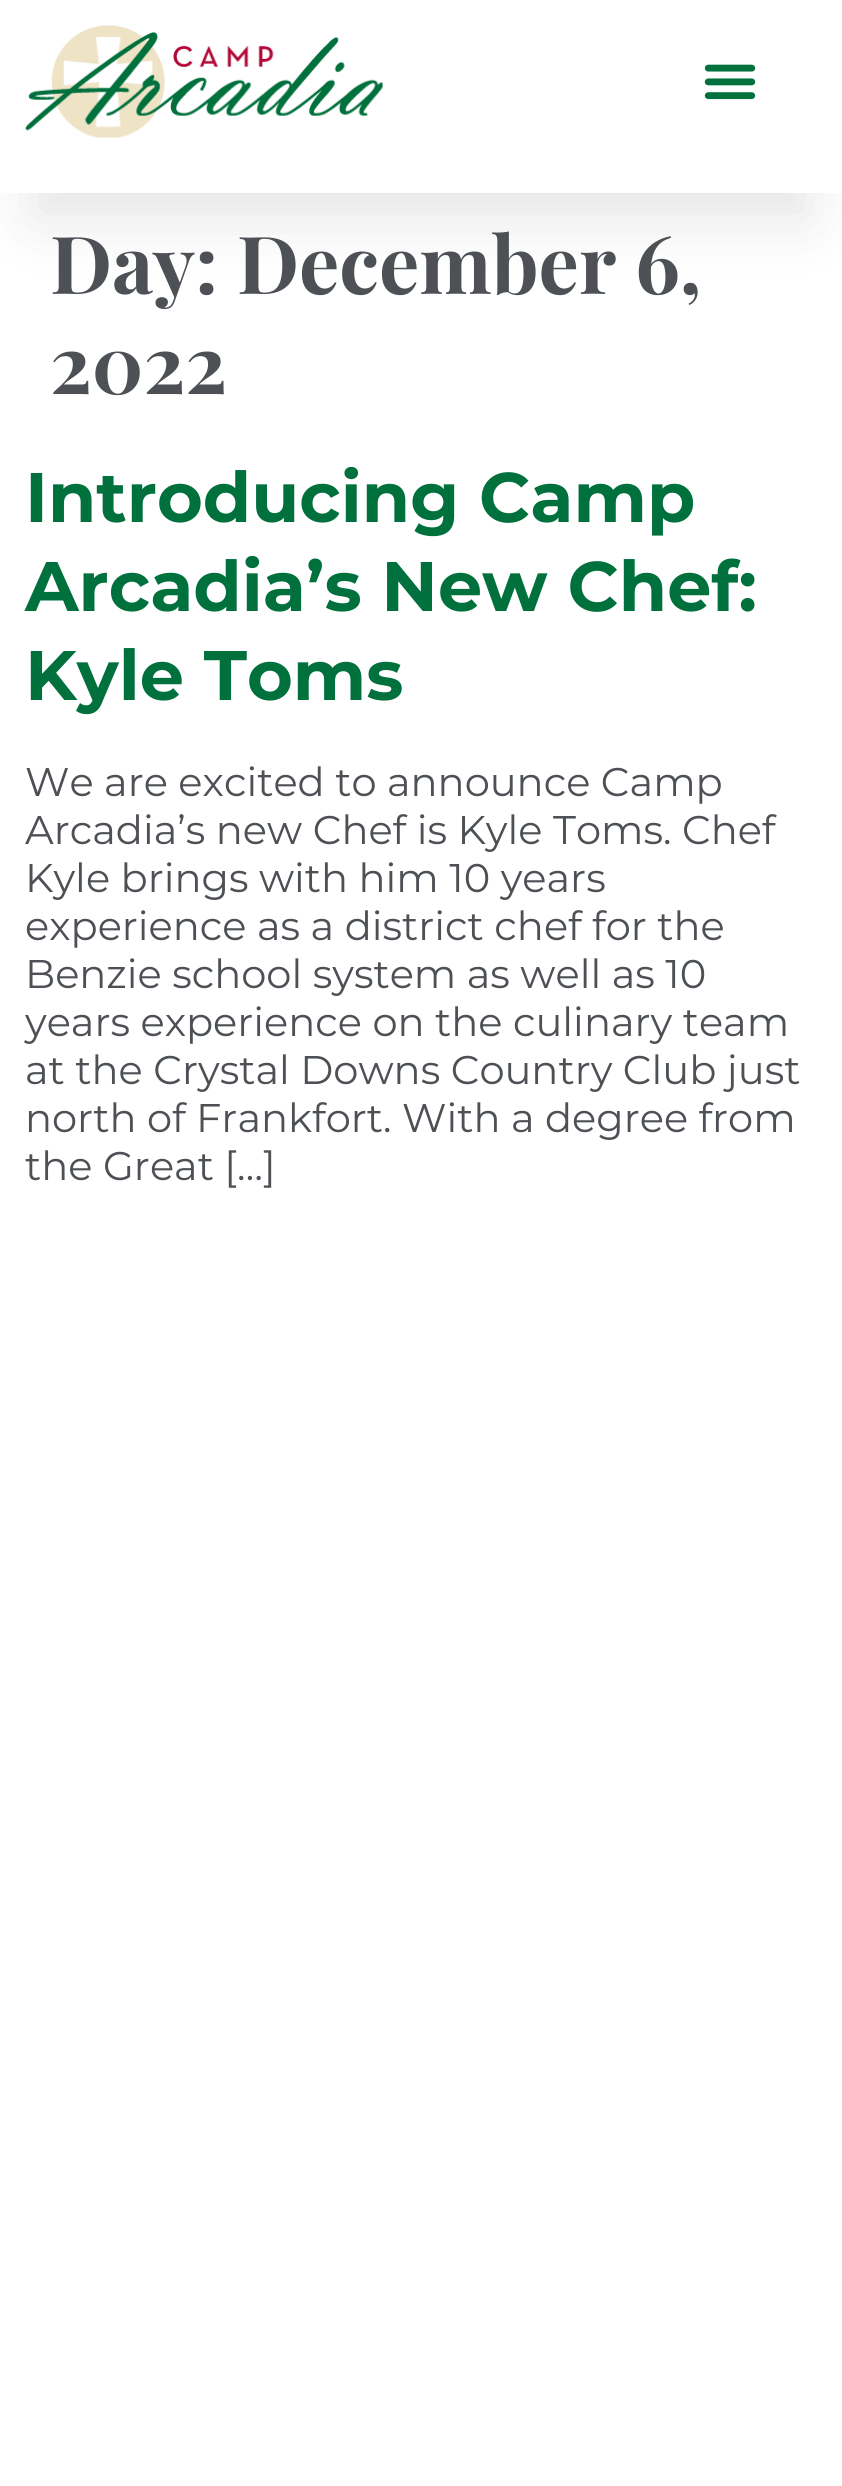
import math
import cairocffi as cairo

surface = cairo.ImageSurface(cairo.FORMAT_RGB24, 842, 2486)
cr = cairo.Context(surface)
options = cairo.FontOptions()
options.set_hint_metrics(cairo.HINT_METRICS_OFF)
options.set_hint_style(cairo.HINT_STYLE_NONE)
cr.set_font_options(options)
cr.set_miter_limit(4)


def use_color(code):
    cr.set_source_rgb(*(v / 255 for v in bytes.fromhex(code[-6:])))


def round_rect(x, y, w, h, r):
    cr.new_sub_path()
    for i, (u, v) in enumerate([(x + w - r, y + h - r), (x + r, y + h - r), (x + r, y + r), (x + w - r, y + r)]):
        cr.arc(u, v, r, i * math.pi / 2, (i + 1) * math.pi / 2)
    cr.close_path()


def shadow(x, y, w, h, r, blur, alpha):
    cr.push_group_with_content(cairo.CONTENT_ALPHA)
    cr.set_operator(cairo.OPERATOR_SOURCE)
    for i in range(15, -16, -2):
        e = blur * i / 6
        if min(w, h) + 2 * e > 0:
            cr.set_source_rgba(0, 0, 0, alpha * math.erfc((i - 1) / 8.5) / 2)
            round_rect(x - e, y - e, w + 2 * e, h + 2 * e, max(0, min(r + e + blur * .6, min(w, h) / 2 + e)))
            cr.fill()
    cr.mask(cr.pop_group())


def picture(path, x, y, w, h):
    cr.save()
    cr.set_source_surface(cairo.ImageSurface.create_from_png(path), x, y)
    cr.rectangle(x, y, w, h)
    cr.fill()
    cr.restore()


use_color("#ffffff")
cr.paint()
cr.save()
cr.set_fill_rule(cairo.FILL_RULE_EVEN_ODD)
cr.new_path()
cr.move_to(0, 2)
cr.line_to(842, 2)
cr.line_to(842, 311)
cr.line_to(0, 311)
cr.close_path()
cr.move_to(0, 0)
cr.line_to(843, 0)
cr.line_to(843, 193)
cr.line_to(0, 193)
cr.close_path()
cr.clip()
use_color("#000000")
shadow(33, 93, 777, 127, 0, 30, 0.1)
cr.restore()
picture("img1.png", 25, 25, 358, 113)
picture("img2.png", 704, 64, 52, 36)
cr.select_font_face("Playfair Display", cairo.FONT_SLANT_NORMAL, cairo.FONT_WEIGHT_BOLD)
cr.set_font_size(80)
use_color("#4d5156")
cr.move_to(50, 294)
cr.show_text("Day: December 6,")
cr.move_to(50, 394)
cr.show_text("2022")
cr.select_font_face("Montserrat", cairo.FONT_SLANT_NORMAL, cairo.FONT_WEIGHT_BOLD)
cr.set_font_size(70)
use_color("#00703c")
cr.move_to(25, 522)
cr.show_text("Introducing Camp")
cr.move_to(25, 611)
cr.show_text("Arcadia’s New Chef:")
cr.move_to(25, 700)
cr.show_text("Kyle Toms")
cr.select_font_face("Montserrat")
cr.set_font_size(40)
use_color("#4d5156")
cr.move_to(25, 796)
cr.show_text("We are excited to announce Camp")
cr.move_to(25, 844)
cr.show_text("Arcadia’s new Chef is Kyle Toms. Chef")
cr.move_to(25, 892)
cr.show_text("Kyle brings with him 10 years")
cr.move_to(25, 940)
cr.show_text("experience as a district chef for the")
cr.move_to(25, 988)
cr.show_text("Benzie school system as well as 10")
cr.move_to(25, 1036)
cr.show_text("years experience on the culinary team")
cr.move_to(25, 1084)
cr.show_text("at the Crystal Downs Country Club just")
cr.move_to(25, 1132)
cr.show_text("north of Frankfort. With a degree from")
cr.move_to(25, 1180)
cr.show_text("the Great […]")
surface.write_to_png("result.png")
